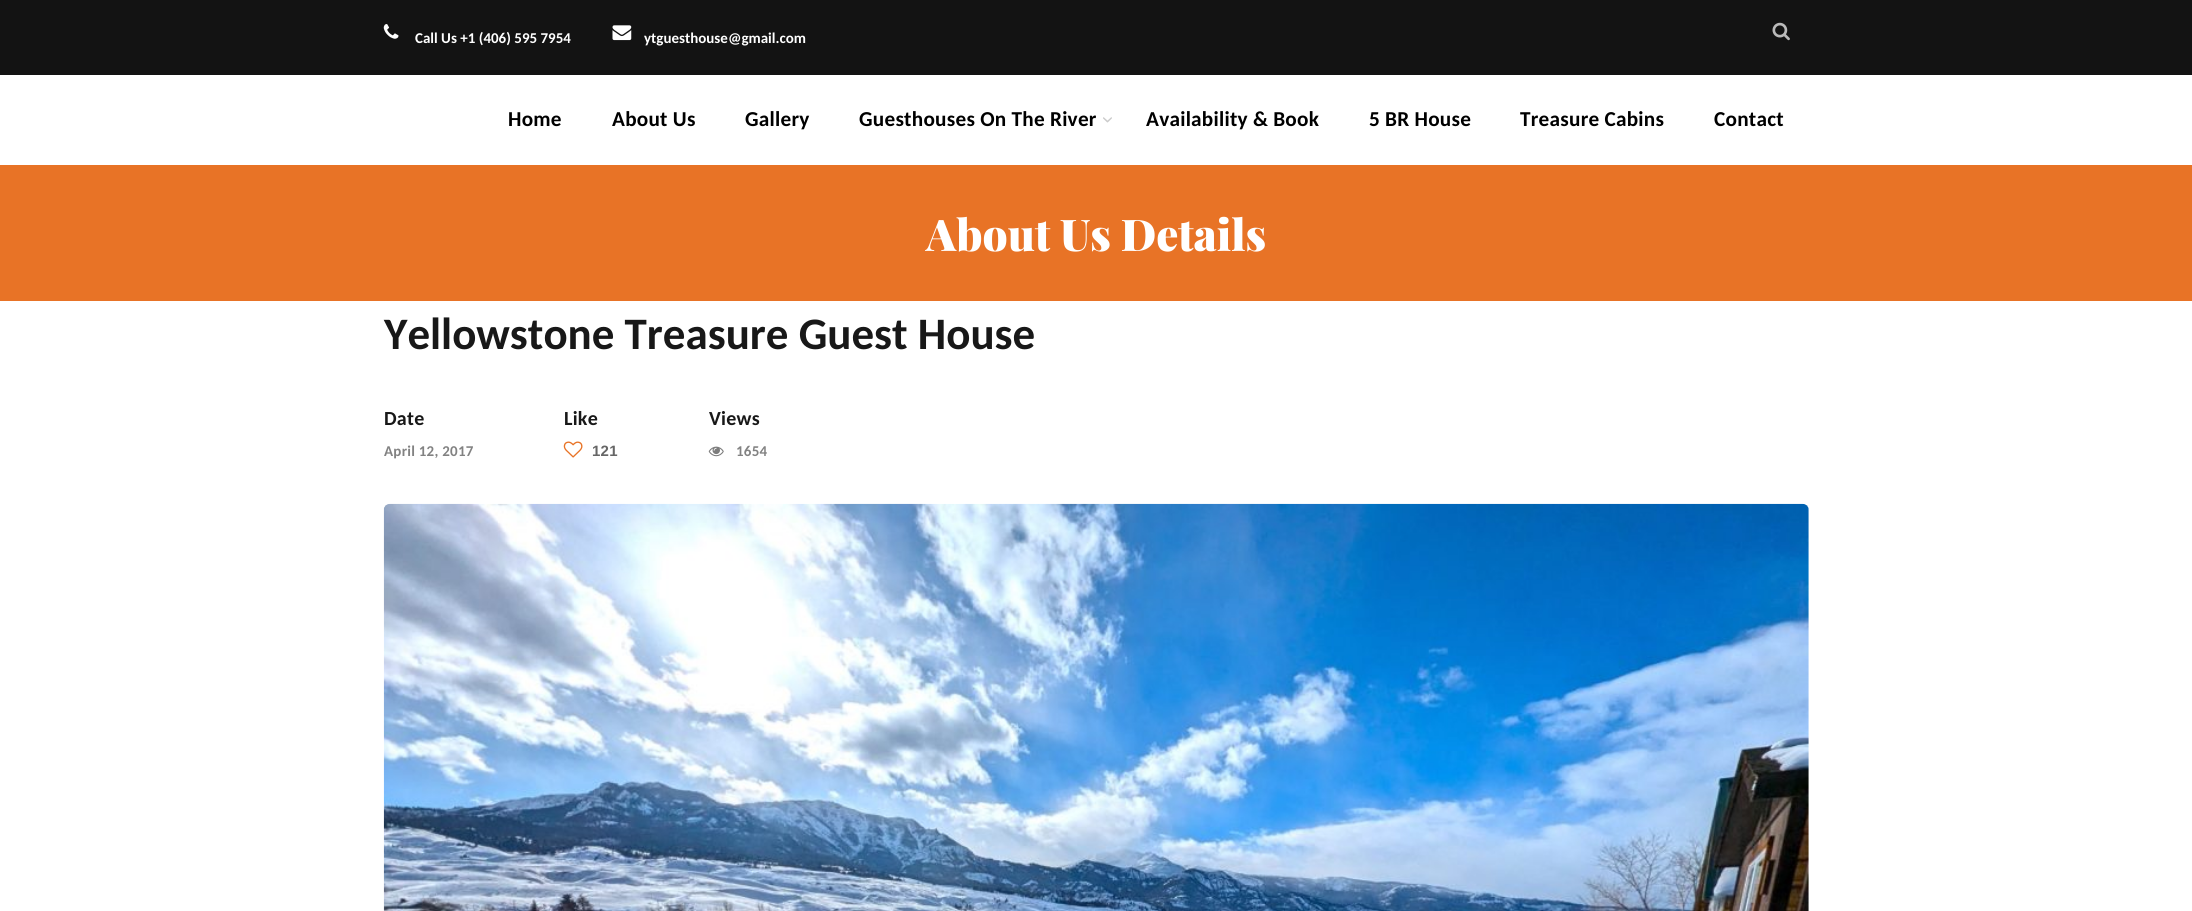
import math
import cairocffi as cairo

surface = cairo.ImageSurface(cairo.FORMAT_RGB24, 2192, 911)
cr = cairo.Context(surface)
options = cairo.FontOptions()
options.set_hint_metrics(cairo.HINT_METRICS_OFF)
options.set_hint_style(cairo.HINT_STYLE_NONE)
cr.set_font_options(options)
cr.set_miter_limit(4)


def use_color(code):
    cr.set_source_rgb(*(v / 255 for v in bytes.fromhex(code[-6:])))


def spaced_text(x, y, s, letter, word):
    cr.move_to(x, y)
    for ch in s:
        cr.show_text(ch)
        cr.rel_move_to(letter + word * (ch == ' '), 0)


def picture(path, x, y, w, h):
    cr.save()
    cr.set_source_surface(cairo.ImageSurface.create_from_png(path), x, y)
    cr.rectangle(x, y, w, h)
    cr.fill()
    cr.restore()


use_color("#ffffff")
cr.paint()
use_color("#131313")
cr.rectangle(0, 0, 2192, 75)
cr.fill()
picture("img1.png", 383, 24, 16, 15)
cr.select_font_face("Carlito", cairo.FONT_SLANT_NORMAL, cairo.FONT_WEIGHT_BOLD)
cr.set_font_size(15)
use_color("#ffffff")
cr.move_to(415, 43)
cr.show_text("Call Us +1 (406) 595 7954")
picture("img2.png", 612, 25, 20, 16)
cr.move_to(644, 43)
cr.show_text("ytguesthouse@gmail.com")
picture("img3.png", 1772, 22, 18, 19)
cr.set_font_size(21.25)
use_color("#000000")
spaced_text(508, 126, "Home", 0.25, 0)
spaced_text(612, 126, "About Us", 0.25, 0)
spaced_text(745, 126, "Gallery", 0.25, 0)
spaced_text(859, 126, "Guesthouses On The River", 0.25, 0)
picture("img4.png", 1103, 117, 9, 6)
spaced_text(1146, 126, "Availability & Book", 0.25, 0)
spaced_text(1369, 126, "5 BR House", 0.25, 0)
spaced_text(1520, 126, "Treasure Cabins", 0.25, 0)
spaced_text(1714, 126, "Contact", 0.25, 0)
use_color("#e87326")
cr.rectangle(0, 165, 2192, 136)
cr.fill()
cr.select_font_face("Playfair Display Black")
cr.set_font_size(43.75)
use_color("#ffffff")
cr.move_to(926, 251)
cr.show_text("About Us Details")
cr.select_font_face("Carlito", cairo.FONT_SLANT_NORMAL, cairo.FONT_WEIGHT_BOLD)
cr.set_font_size(45)
use_color("#181818")
cr.move_to(384, 349)
cr.show_text("Yellowstone Treasure Guest House")
cr.set_font_size(20)
spaced_text(384, 425, "Date", 0.25, 0)
cr.set_font_size(15)
use_color("#828282")
spaced_text(384, 456, "April 12, 2017", 0.25, 0)
cr.set_font_size(20)
use_color("#181818")
spaced_text(564, 425, "Like", 0.25, 0)
picture("img5.png", 563, 441, 20, 17)
cr.select_font_face("Liberation Sans", cairo.FONT_SLANT_NORMAL, cairo.FONT_WEIGHT_BOLD)
cr.set_font_size(15)
use_color("#666666")
spaced_text(592, 456, "121", 0.25, 0)
cr.select_font_face("Carlito", cairo.FONT_SLANT_NORMAL, cairo.FONT_WEIGHT_BOLD)
cr.set_font_size(20)
use_color("#181818")
spaced_text(709, 425, "Views", 0.25, 0)
picture("img6.png", 708, 446, 16, 11)
cr.set_font_size(15)
use_color("#828282")
spaced_text(736, 456, "1654", 0.25, 0)
picture("img7.png", 383, 503, 1426, 408)
surface.write_to_png("result.png")
